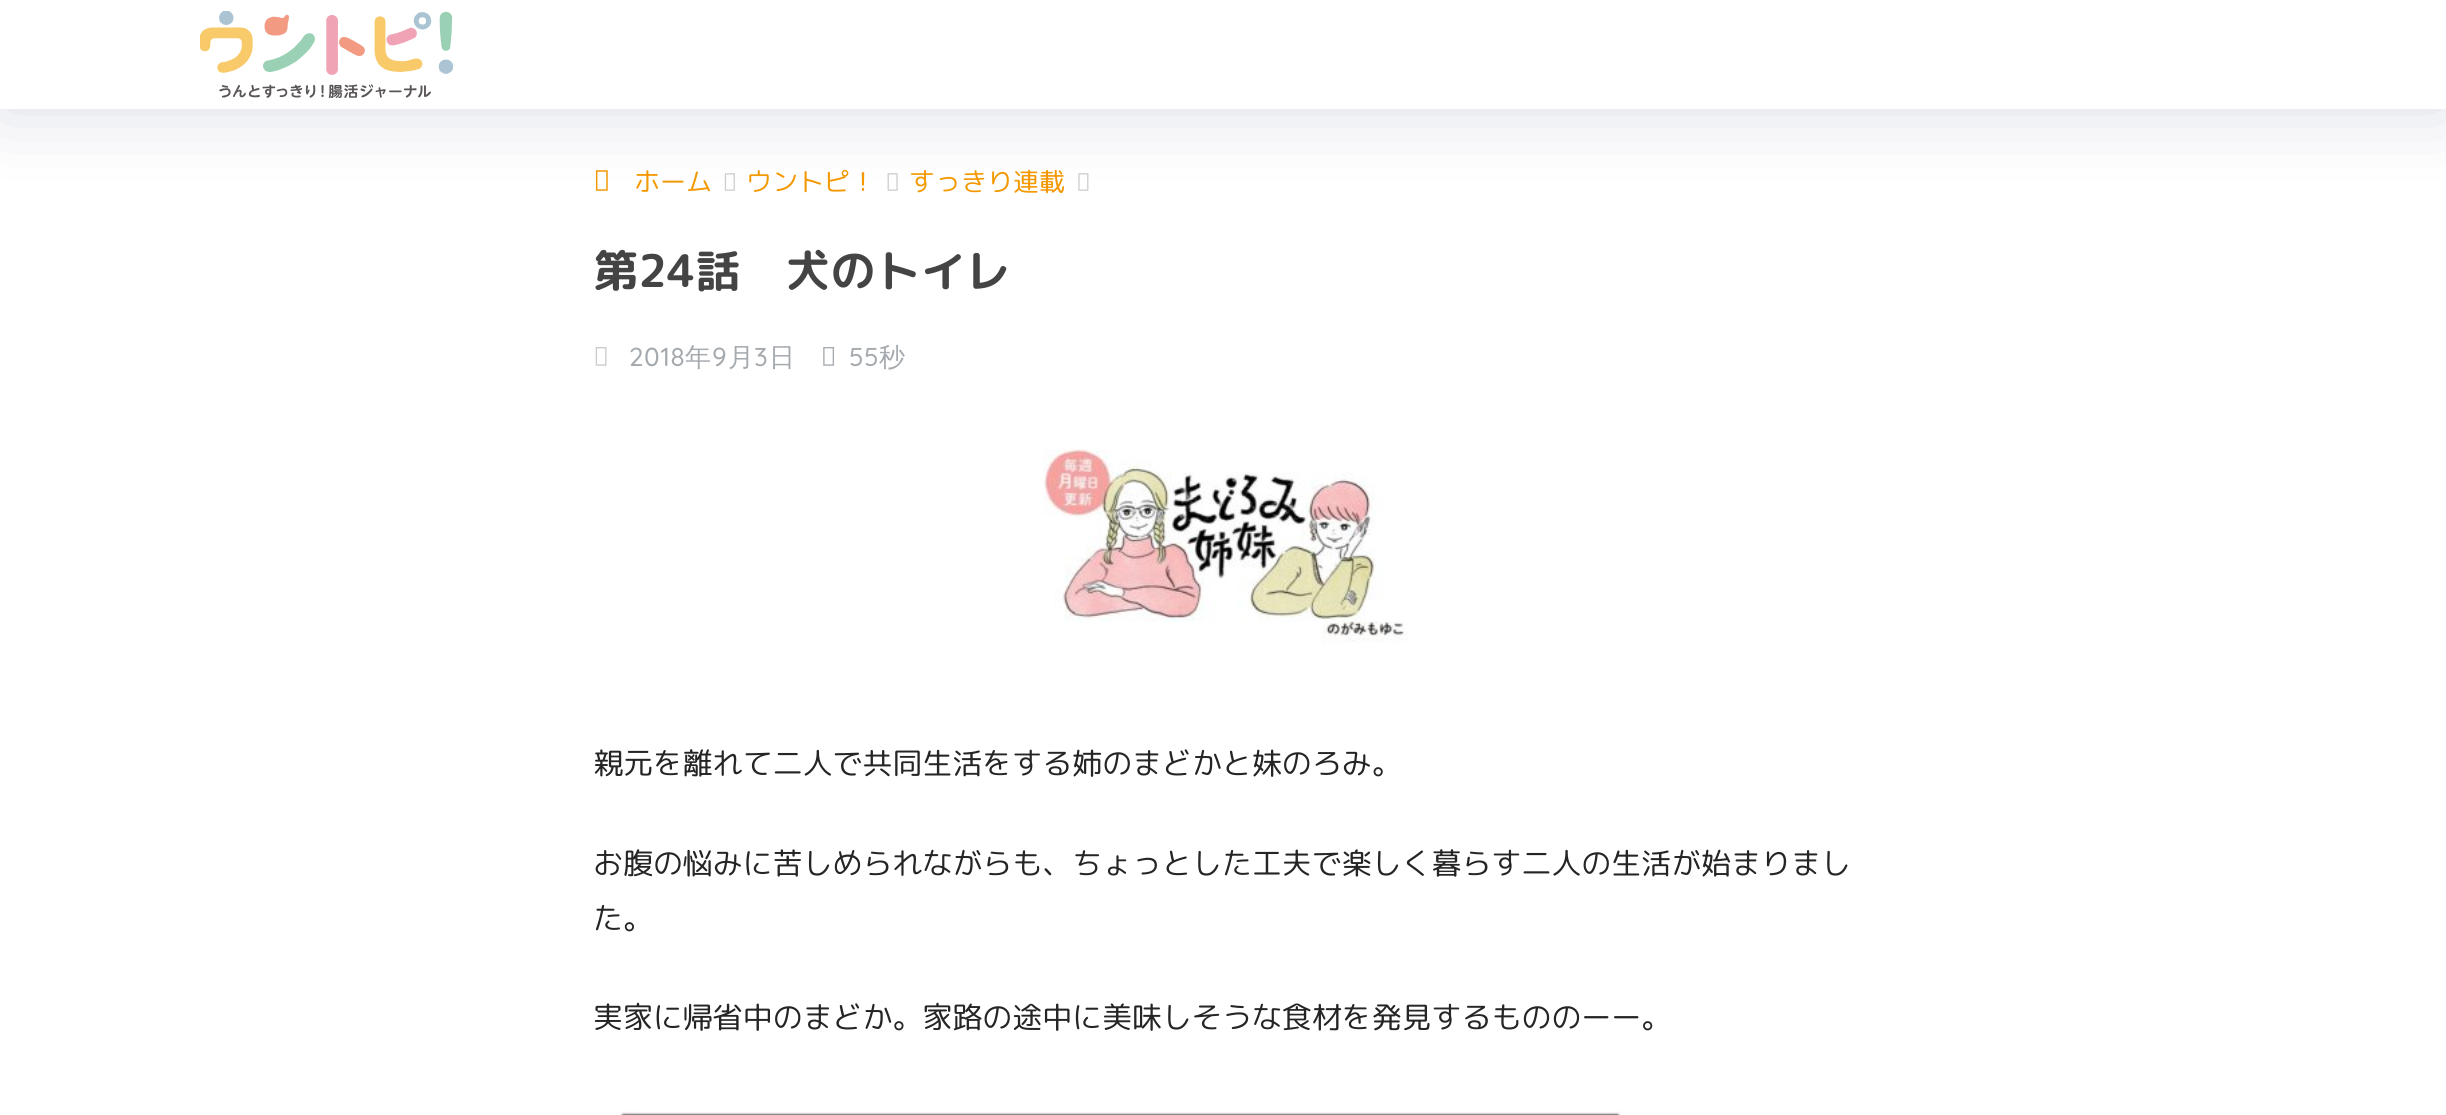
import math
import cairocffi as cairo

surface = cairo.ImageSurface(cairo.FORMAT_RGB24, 2446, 1115)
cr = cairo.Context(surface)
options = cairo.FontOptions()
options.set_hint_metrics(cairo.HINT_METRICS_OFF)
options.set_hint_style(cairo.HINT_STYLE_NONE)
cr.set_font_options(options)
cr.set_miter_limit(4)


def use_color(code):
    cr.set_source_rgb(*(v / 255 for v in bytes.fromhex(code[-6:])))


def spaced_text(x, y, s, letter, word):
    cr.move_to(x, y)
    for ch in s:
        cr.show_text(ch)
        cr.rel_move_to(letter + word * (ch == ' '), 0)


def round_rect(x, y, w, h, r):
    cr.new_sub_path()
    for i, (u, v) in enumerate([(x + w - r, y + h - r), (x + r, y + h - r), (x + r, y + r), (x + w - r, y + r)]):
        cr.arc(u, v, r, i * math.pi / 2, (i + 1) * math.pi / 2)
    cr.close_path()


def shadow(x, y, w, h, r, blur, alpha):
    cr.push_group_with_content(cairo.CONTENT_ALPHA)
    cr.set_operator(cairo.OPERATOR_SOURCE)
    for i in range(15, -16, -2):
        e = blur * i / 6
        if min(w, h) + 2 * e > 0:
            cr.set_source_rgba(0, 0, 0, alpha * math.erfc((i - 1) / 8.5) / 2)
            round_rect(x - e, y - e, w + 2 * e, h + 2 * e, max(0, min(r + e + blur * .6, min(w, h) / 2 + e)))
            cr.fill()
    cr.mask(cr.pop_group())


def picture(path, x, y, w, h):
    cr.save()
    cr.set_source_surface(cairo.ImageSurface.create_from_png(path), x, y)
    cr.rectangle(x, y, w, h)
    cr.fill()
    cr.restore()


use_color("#ffffff")
cr.paint()
picture("img2.png", 595, 170, 13, 21)
picture("img3.png", 724, 173, 11, 18)
picture("img4.png", 887, 173, 11, 18)
picture("img5.png", 1078, 173, 11, 18)
use_color("#000c42")
shadow(0, 0, 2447, 109, 0, 39.5, 0.15)
use_color("#ffffff")
cr.rectangle(0, 0, 2446, 109)
cr.fill()
picture("img1.png", 200, 11, 253, 87)
cr.select_font_face("Rounded Mplus 1c")
cr.set_font_size(26)
use_color("#f39800")
cr.move_to(634, 191)
cr.show_text("ホーム")
cr.move_to(746, 191)
cr.show_text("ウントピ！")
cr.move_to(909, 191)
cr.show_text("すっきり連載")
cr.select_font_face("Rounded Mplus 1c Bold", cairo.FONT_SLANT_NORMAL, cairo.FONT_WEIGHT_BOLD)
cr.set_font_size(45)
use_color("#444444")
cr.move_to(593, 287)
cr.show_text("第24話　犬のトイレ")
picture("img6.png", 595, 347, 12, 19)
cr.select_font_face("Quicksand Medium")
cr.set_font_size(26)
use_color("#a5aaaf")
spaced_text(629, 366, "2018", 0.5, 0)
cr.select_font_face("WenQuanYi Zen Hei Medium")
spaced_text(685, 366, "年", 0.5, 0)
cr.select_font_face("Quicksand Medium")
spaced_text(712, 366, "9", 0.5, 0)
cr.select_font_face("WenQuanYi Zen Hei Medium")
spaced_text(728, 366, "月", 0.5, 0)
cr.select_font_face("Quicksand Medium")
spaced_text(754, 366, "3", 0.5, 0)
cr.select_font_face("WenQuanYi Zen Hei Medium")
spaced_text(769, 366, "日", 0.5, 0)
picture("img7.png", 823, 347, 11, 19)
cr.select_font_face("Quicksand Medium")
spaced_text(849, 366, "55", 0.5, 0)
cr.select_font_face("WenQuanYi Zen Hei Medium")
spaced_text(879, 366, "秒", 0.5, 0)
picture("img8.png", 1043, 449, 365, 194)
cr.select_font_face("Rounded Mplus 1c")
cr.set_font_size(29.95)
use_color("#252525")
cr.move_to(593, 774)
cr.show_text("親元を離れて二人で共同生活をする姉のまどかと妹のろみ。")
cr.move_to(593, 874)
cr.show_text("お腹の悩みに苦しめられながらも、ちょっとした工夫で楽しく暮らす二人の生活が始まりまし")
cr.move_to(593, 929)
cr.show_text("た。")
cr.move_to(593, 1028)
cr.show_text("実家に帰省中のまどか。家路の途中に美味しそうな食材を発見するもののーー。")
picture("img9.png", 620, 1110, 1001, 5)
surface.write_to_png("result.png")
